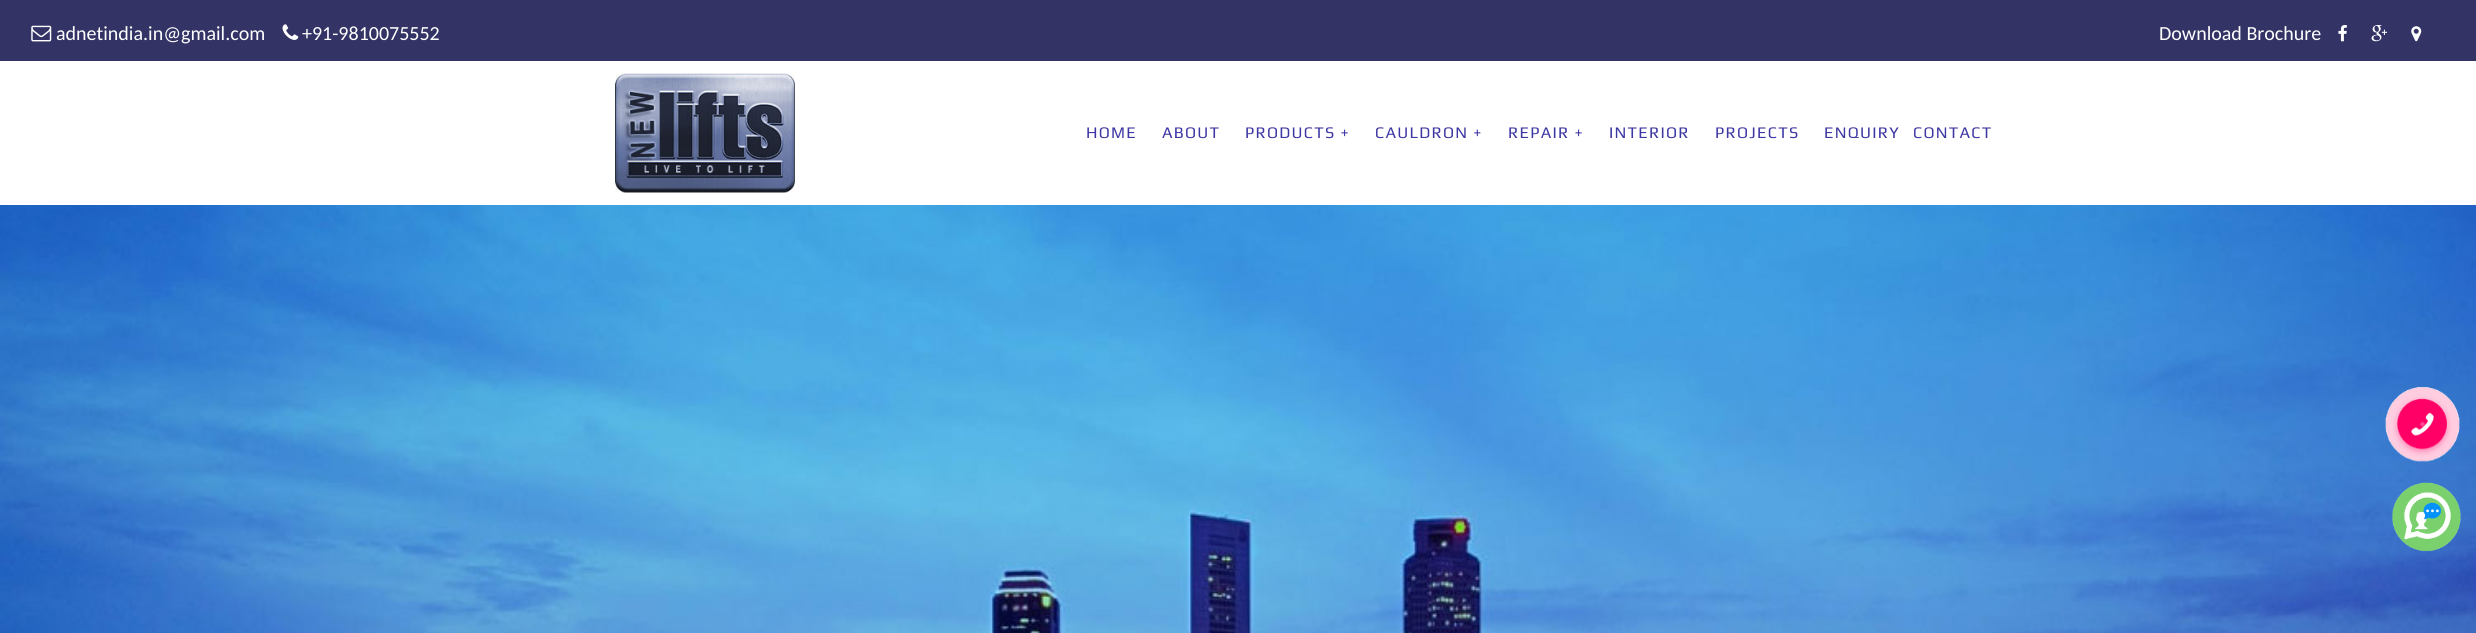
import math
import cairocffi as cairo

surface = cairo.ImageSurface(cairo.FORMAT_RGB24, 2476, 633)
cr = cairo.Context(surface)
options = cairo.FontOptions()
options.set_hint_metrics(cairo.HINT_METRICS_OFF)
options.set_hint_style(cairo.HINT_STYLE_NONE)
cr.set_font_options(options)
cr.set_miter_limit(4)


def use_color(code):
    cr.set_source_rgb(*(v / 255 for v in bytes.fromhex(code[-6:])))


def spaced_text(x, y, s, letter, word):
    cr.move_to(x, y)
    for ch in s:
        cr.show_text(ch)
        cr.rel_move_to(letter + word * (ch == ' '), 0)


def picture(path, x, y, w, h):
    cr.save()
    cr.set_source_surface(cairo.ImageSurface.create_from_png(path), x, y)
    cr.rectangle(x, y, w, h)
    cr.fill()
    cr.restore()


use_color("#ffffff")
cr.paint()
use_color("#333366")
cr.rectangle(0, 0, 2476, 61)
cr.fill()
picture("img1.png", 31, 25, 21, 17)
cr.select_font_face("Carlito")
cr.set_font_size(20)
use_color("#ffffff")
cr.move_to(56, 40)
cr.show_text("adnetindia.in@gmail.com")
picture("img2.png", 282, 24, 17, 16)
cr.move_to(302, 40)
cr.show_text("+91-9810075552")
cr.move_to(2159, 40)
cr.show_text("Download Brochure")
picture("img3.png", 2338, 25, 9, 17)
picture("img4.png", 2371, 25, 16, 17)
picture("img5.png", 2411, 26, 11, 16)
picture("img6.png", 615, 73, 180, 120)
cr.select_font_face("Play")
cr.set_font_size(16.25)
use_color("#3d37a4")
spaced_text(1086, 138, "HOME", 1.25, 0)
spaced_text(1162, 138, "ABOUT", 1.25, 0)
spaced_text(1245, 138, "PRODUCTS +", 1.25, 0)
spaced_text(1375, 138, "CAULDRON +", 1.25, 0)
spaced_text(1508, 138, "REPAIR +", 1.25, 0)
spaced_text(1609, 138, "INTERIOR", 1.25, 0)
spaced_text(1715, 138, "PROJECTS", 1.25, 0)
spaced_text(1824, 138, "ENQUIRY", 1.25, 0)
spaced_text(1913, 138, "CONTACT", 1.25, 0)
picture("img7.png", 0, 205, 2476, 428)
picture("img8.png", 2385, 387, 75, 75)
picture("img9.png", 2392, 482, 69, 70)
surface.write_to_png("result.png")
